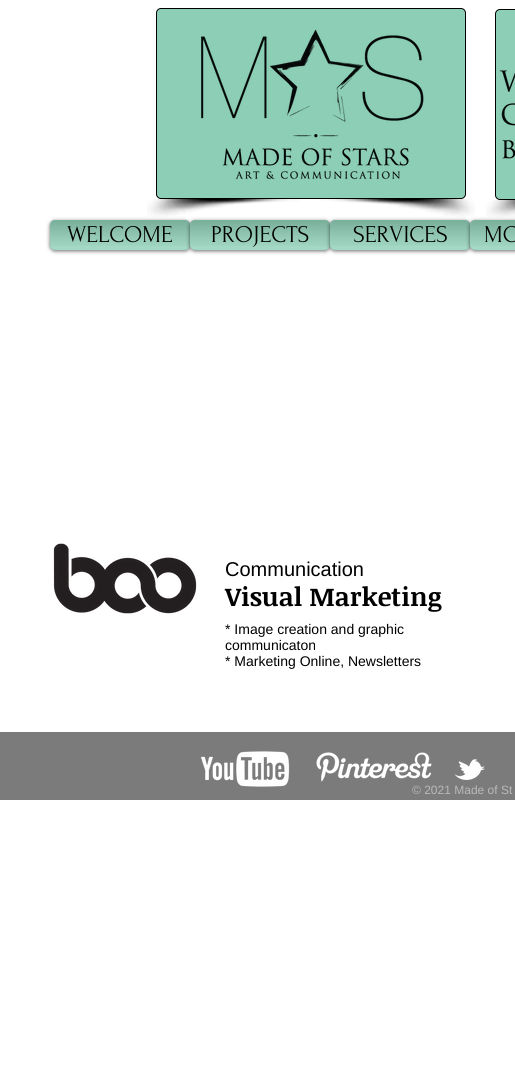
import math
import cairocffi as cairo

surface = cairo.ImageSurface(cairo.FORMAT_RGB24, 515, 1065)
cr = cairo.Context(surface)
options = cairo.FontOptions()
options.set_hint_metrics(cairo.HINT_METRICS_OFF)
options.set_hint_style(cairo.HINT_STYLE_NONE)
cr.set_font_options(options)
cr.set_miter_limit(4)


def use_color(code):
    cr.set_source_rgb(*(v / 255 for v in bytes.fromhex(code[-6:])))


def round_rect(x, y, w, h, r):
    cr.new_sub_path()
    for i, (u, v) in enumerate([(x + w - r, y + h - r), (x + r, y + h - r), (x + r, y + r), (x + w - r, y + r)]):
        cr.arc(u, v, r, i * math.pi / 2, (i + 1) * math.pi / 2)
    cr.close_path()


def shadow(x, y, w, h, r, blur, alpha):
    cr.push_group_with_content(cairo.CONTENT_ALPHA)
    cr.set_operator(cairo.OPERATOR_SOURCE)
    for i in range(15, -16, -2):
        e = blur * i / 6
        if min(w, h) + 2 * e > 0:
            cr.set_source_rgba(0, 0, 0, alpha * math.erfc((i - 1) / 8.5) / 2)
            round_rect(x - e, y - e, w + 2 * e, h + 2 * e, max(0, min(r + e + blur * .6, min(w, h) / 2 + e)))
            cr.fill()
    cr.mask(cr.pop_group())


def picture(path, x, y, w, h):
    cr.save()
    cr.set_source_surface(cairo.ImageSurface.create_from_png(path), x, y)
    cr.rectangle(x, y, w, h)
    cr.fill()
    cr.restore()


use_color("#ffffff")
cr.paint()
use_color("#8cceb6")
round_rect(156.5, 8.5, 309, 190, 4.5)
cr.fill_preserve()
use_color("#000000")
cr.set_line_width(1)
cr.stroke()
picture("img1.png", 201, 29, 223, 151)
picture("img2.png", 147, 199, 154, 18)
picture("img3.png", 321, 199, 154, 18)
use_color("#8cceb6")
round_rect(495.5, 9.5, 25, 190, 4.5)
cr.fill_preserve()
use_color("#000000")
cr.stroke()
picture("img4.png", 499, 70, 16, 89)
picture("img5.png", 486, 200, 29, 18)
use_color("#000000")
shadow(50, 221, 140, 30, 5, 2, 0.6)
use_color("#8ccfb6")
round_rect(50, 220, 140, 30, 5)
cr.fill()
picture("img6.png", 50, 220, 140, 26)
picture("img7.png", 50, 220, 140, 30)
cr.select_font_face("Forum")
cr.set_font_size(24)
use_color("#000000")
cr.move_to(67, 242)
cr.show_text("WELCOME")
use_color("#000000")
shadow(190, 221, 140, 30, 5, 2, 0.6)
use_color("#8ccfb6")
round_rect(190, 220, 140, 30, 5)
cr.fill()
picture("img8.png", 190, 220, 140, 26)
picture("img9.png", 190, 220, 140, 30)
use_color("#000000")
cr.move_to(211, 242)
cr.show_text("PROJECTS")
use_color("#000000")
shadow(330, 221, 140, 30, 5, 2, 0.6)
use_color("#8ccfb6")
round_rect(330, 220, 140, 30, 5)
cr.fill()
picture("img8.png", 330, 220, 140, 26)
picture("img10.png", 330, 220, 140, 30)
use_color("#000000")
cr.move_to(353, 242)
cr.show_text("SERVICES")
use_color("#000000")
shadow(470, 221, 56, 30, 5, 2, 0.6)
use_color("#8ccfb6")
round_rect(470, 220, 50, 30, 5)
cr.fill()
picture("img11.png", 470, 220, 45, 26)
picture("img12.png", 470, 220, 45, 30)
use_color("#000000")
cr.move_to(484, 242)
cr.show_text("MO")
picture("img13.png", 53, 543, 144, 71)
cr.select_font_face("Liberation Sans")
cr.set_font_size(20)
cr.move_to(225, 576)
cr.show_text("Communication")
cr.select_font_face("Noticia Text", cairo.FONT_SLANT_NORMAL, cairo.FONT_WEIGHT_BOLD)
cr.set_font_size(26)
cr.move_to(225, 606)
cr.show_text("Visual Marketing")
cr.select_font_face("Liberation Sans")
cr.set_font_size(14)
cr.move_to(225, 634)
cr.show_text("* Image creation and graphic")
cr.move_to(225, 650)
cr.show_text("communicaton")
cr.move_to(225, 666)
cr.show_text("* Marketing Online, Newsletters")
use_color("#7b7b7b")
cr.rectangle(0, 732, 515, 68)
cr.fill()
picture("img14.png", 201, 751, 89, 36)
picture("img15.png", 316, 752, 116, 30)
picture("img16.png", 454, 759, 31, 22)
cr.set_font_size(12)
use_color("#b9b9b9")
cr.move_to(412, 794)
cr.show_text("© 2021 Made of St")
surface.write_to_png("result.png")
